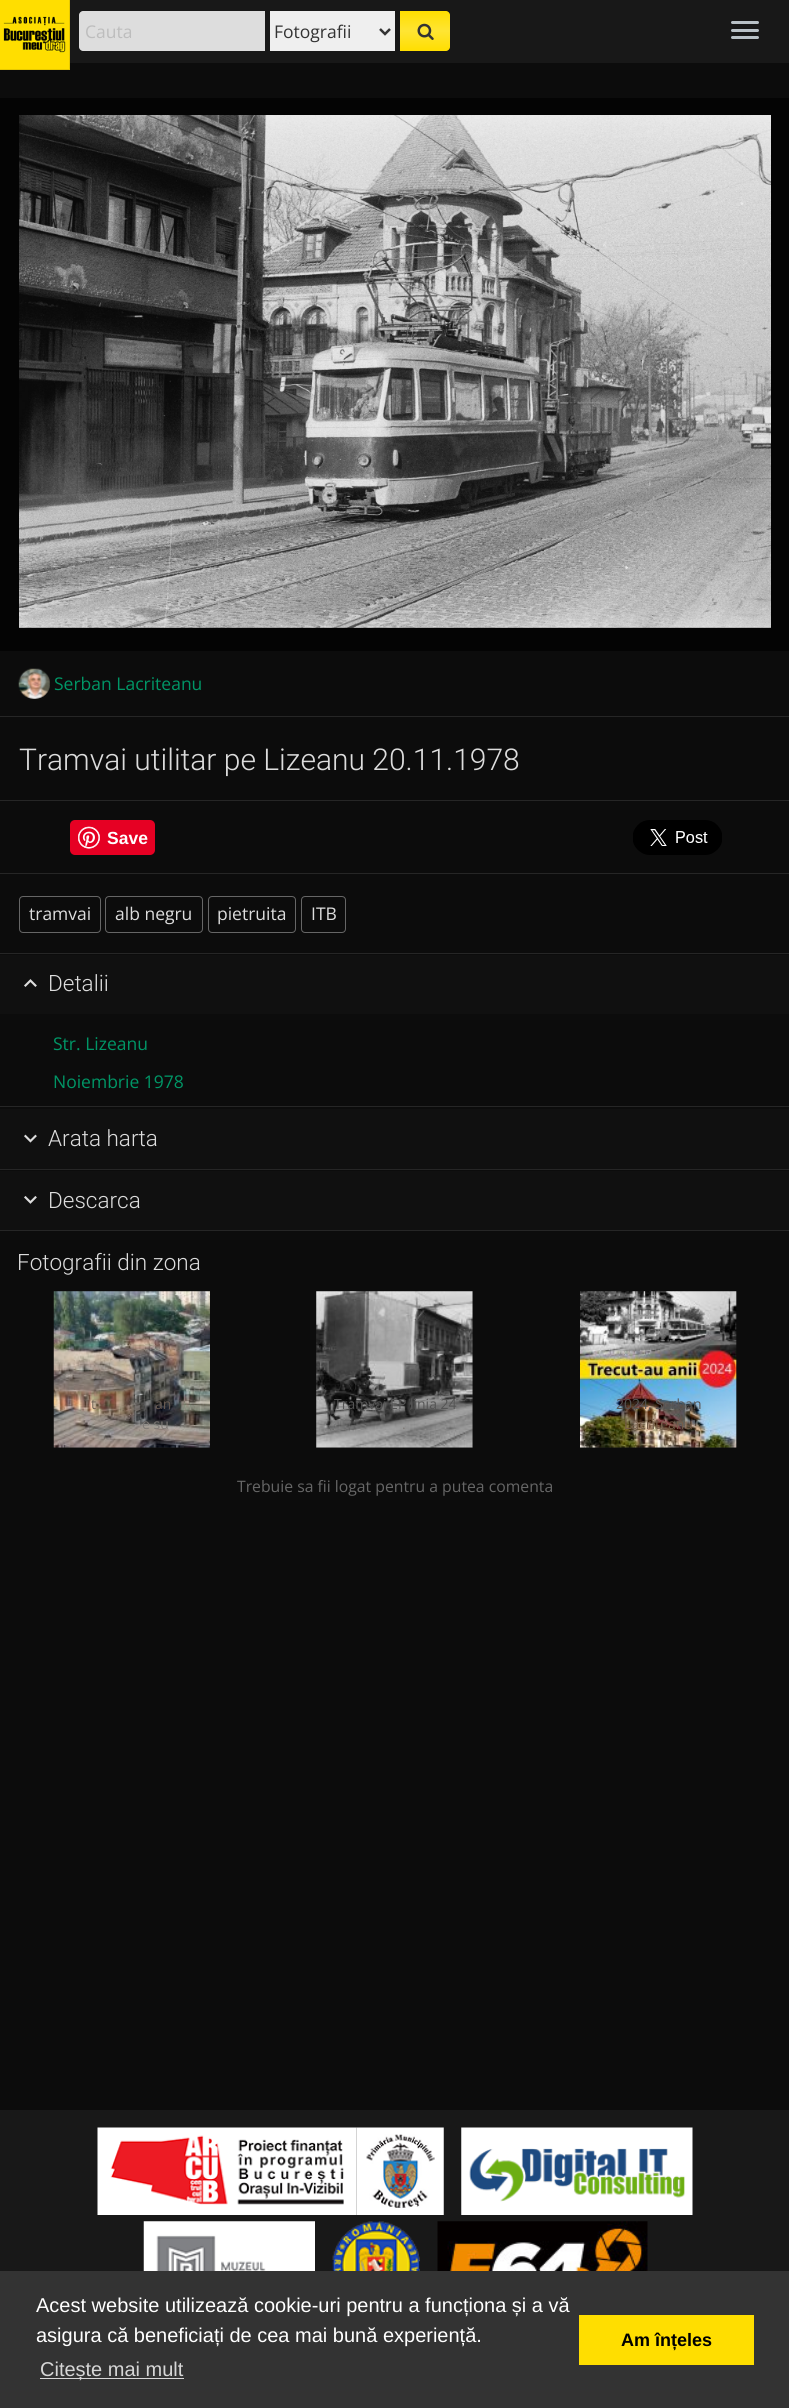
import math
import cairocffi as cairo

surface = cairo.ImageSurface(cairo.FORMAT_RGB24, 789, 2408)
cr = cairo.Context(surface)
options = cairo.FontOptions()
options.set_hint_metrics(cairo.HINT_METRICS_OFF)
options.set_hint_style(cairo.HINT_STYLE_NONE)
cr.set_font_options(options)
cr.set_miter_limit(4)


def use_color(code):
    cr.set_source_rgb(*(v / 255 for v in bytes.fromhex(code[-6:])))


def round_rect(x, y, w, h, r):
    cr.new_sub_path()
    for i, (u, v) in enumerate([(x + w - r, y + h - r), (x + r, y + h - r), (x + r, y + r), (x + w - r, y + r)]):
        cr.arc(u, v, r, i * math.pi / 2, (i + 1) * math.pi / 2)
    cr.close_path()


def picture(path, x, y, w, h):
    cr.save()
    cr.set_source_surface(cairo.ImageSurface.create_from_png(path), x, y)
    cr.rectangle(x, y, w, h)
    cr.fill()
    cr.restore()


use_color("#0c0c0c")
cr.paint()
use_color("#181818")
cr.rectangle(70, 0, 719, 63)
cr.fill()
use_color("#ffde00")
cr.rectangle(0, 0, 69, 69)
cr.fill()
picture("img1.png", 3, 16, 63, 37)
use_color("#e6c800")
cr.rectangle(69, 0, 1, 70)
cr.fill()
cr.rectangle(0, 69, 70, 1)
cr.fill()
use_color("#dddddd")
cr.new_path()
cr.move_to(83, 11)
cr.line_to(265, 11)
cr.line_to(265, 51)
cr.line_to(83, 51)
cr.curve_to(81, 51, 79, 49, 79, 47)
cr.line_to(79, 15)
cr.curve_to(79, 13, 81, 11, 83, 11)
cr.close_path()
cr.fill()
cr.select_font_face("Open Sans")
cr.set_font_size(17.5)
use_color("#bdbdbd")
cr.move_to(85, 38)
cr.show_text("Cauta")
use_color("#efefef")
cr.rectangle(270, 11, 125, 40)
cr.fill()
cr.new_path()
cr.move_to(380, 29)
cr.line_to(385, 34)
cr.line_to(390, 29)
use_color("#333333")
cr.set_line_width(2.5)
cr.stroke()
cr.move_to(274, 38)
cr.show_text("Fotografii")
gradient = cairo.LinearGradient(425, 11, 425, 51)
gradient.add_color_stop_rgba(0, 1, 0.871, 0, 1)
gradient.add_color_stop_rgba(0.5, 1, 0.898, 0.2, 1)
gradient.add_color_stop_rgba(1, 1, 0.871, 0, 1)
cr.set_source(gradient)
cr.new_path()
cr.move_to(400, 11)
cr.line_to(446, 11)
cr.curve_to(448, 11, 450, 13, 450, 15)
cr.line_to(450, 47)
cr.curve_to(450, 49, 448, 51, 446, 51)
cr.line_to(400, 51)
cr.close_path()
cr.fill()
picture("img2.png", 417, 23, 17, 17)
use_color("#b9c1c7")
round_rect(731, 21, 28, 3, 1.5)
cr.fill()
round_rect(731, 29, 28, 3, 1.5)
cr.fill()
round_rect(731, 36, 28, 3, 1.5)
cr.fill()
use_color("#040404")
cr.rectangle(0, 98, 789, 553)
cr.fill()
picture("img3.png", 19, 115, 752, 513)
picture("img4.png", 18, 668, 32, 31)
use_color("#009666")
cr.move_to(54, 690)
cr.show_text("Serban Lacriteanu")
use_color("#262626")
cr.rectangle(0, 716, 789, 1)
cr.fill()
cr.select_font_face("Roboto Light")
cr.set_font_size(30)
use_color("#dddddd")
cr.move_to(19, 770)
cr.show_text("Tramvai utilitar pe Lizeanu 20.11.1978")
use_color("#262626")
cr.rectangle(0, 800, 789, 1)
cr.fill()
use_color("#e60023")
round_rect(70, 820, 85, 35, 5)
cr.fill()
picture("img5.png", 78, 826, 22, 23)
cr.select_font_face("Liberation Sans", cairo.FONT_SLANT_NORMAL, cairo.FONT_WEIGHT_BOLD)
cr.set_font_size(17.5)
use_color("#ffffff")
cr.move_to(107, 844)
cr.show_text("Save")
picture("img6.png", 633, 820, 89, 35)
use_color("#262626")
cr.rectangle(0, 873, 789, 1)
cr.fill()
round_rect(19.5, 896.5, 81, 36, 3.5)
use_color("#666666")
cr.set_line_width(1)
cr.stroke()
cr.select_font_face("Open Sans")
use_color("#dddddd")
cr.move_to(29, 920)
cr.show_text("tramvai")
round_rect(105.5, 896.5, 97, 36, 3.5)
use_color("#666666")
cr.stroke()
use_color("#dddddd")
cr.move_to(115, 920)
cr.show_text("alb negru")
round_rect(208.5, 896.5, 87, 36, 3.5)
use_color("#666666")
cr.stroke()
use_color("#dddddd")
cr.move_to(217, 920)
cr.show_text("pietruita")
round_rect(301.5, 896.5, 44, 36, 3.5)
use_color("#666666")
cr.stroke()
use_color("#dddddd")
cr.move_to(311, 920)
cr.show_text("ITB")
use_color("#262626")
cr.rectangle(0, 953, 789, 1)
cr.fill()
use_color("#101010")
cr.rectangle(0, 955, 789, 59)
cr.fill()
picture("img7.png", 24, 979, 13, 8)
cr.select_font_face("Roboto Light")
cr.set_font_size(22.5)
use_color("#dddddd")
cr.move_to(48, 991)
cr.show_text("Detalii")
cr.select_font_face("Open Sans")
cr.set_font_size(17.5)
use_color("#009666")
cr.move_to(53, 1050)
cr.show_text("Str. Lizeanu")
cr.move_to(53, 1088)
cr.show_text("Noiembrie 1978")
use_color("#262626")
cr.rectangle(0, 1106, 789, 1)
cr.fill()
use_color("#101010")
cr.rectangle(0, 1109, 789, 60)
cr.fill()
picture("img8.png", 24, 1134, 13, 9)
cr.select_font_face("Roboto Light")
cr.set_font_size(22.5)
use_color("#dddddd")
cr.move_to(48, 1146)
cr.show_text("Arata harta")
use_color("#262626")
cr.rectangle(0, 1169, 789, 1)
cr.fill()
use_color("#101010")
cr.rectangle(0, 1171, 789, 59)
cr.fill()
picture("img9.png", 24, 1196, 13, 8)
use_color("#dddddd")
cr.move_to(48, 1208)
cr.show_text("Descarca")
use_color("#262626")
cr.rectangle(0, 1230, 789, 1)
cr.fill()
use_color("#dddddd")
cr.move_to(17, 1270)
cr.show_text("Fotografii din zona")
use_color("#181818")
cr.rectangle(54, 1291, 156, 157)
cr.fill()
picture("img10.png", 53, 1291, 157, 157)
cr.select_font_face("Open Sans")
cr.set_font_size(14)
use_color("#675a51")
cr.move_to(91, 1409)
cr.show_text("t")
cr.move_to(155, 1409)
cr.show_text("an")
use_color("#807b77")
cr.move_to(142, 1429)
cr.show_text("e su")
use_color("#181818")
cr.rectangle(316, 1291, 157, 157)
cr.fill()
picture("img11.png", 316, 1291, 157, 157)
use_color("#555555")
cr.move_to(334, 1409)
cr.show_text("Tramvai EP linia 24")
use_color("#807b77")
cr.move_to(402, 1429)
cr.show_text(".")
use_color("#181818")
cr.rectangle(580, 1291, 156, 157)
cr.fill()
picture("img12.png", 580, 1291, 157, 157)
use_color("#555555")
cr.move_to(616, 1409)
cr.show_text("2024, Serban")
use_color("#755d4a")
cr.move_to(624, 1429)
cr.show_text("Lacriteanu")
cr.set_font_size(15.75)
use_color("#666666")
cr.move_to(237, 1492)
cr.show_text("Trebuie sa fii logat pentru a putea comenta")
use_color("#181818")
cr.rectangle(0, 2110, 789, 161)
cr.fill()
picture("img13.png", 97, 2127, 260, 88)
picture("img14.png", 356, 2127, 88, 88)
picture("img15.png", 461, 2127, 232, 88)
picture("img16.png", 143, 2221, 172, 50)
picture("img17.png", 332, 2221, 88, 50)
picture("img18.png", 437, 2221, 211, 50)
use_color("#333333")
cr.rectangle(0, 2271, 789, 137)
cr.fill()
cr.select_font_face("Liberation Sans")
cr.set_font_size(20)
use_color("#ffffff")
cr.move_to(36, 2312)
cr.show_text("Acest website utilizează cookie-uri pentru a funcționa și a vă")
cr.move_to(36, 2342)
cr.show_text("asigura că beneficiați de cea mai bună experiență.")
use_color("#d6d6d6")
cr.rectangle(40, 2378, 144, 1)
cr.fill()
cr.move_to(40, 2376)
cr.show_text("Citește mai mult")
use_color("#ffde00")
cr.rectangle(579, 2315, 175, 50)
cr.fill()
cr.select_font_face("Liberation Sans", cairo.FONT_SLANT_NORMAL, cairo.FONT_WEIGHT_BOLD)
cr.set_font_size(18)
use_color("#000000")
cr.move_to(621, 2346)
cr.show_text("Am înțeles")
surface.write_to_png("result.png")
